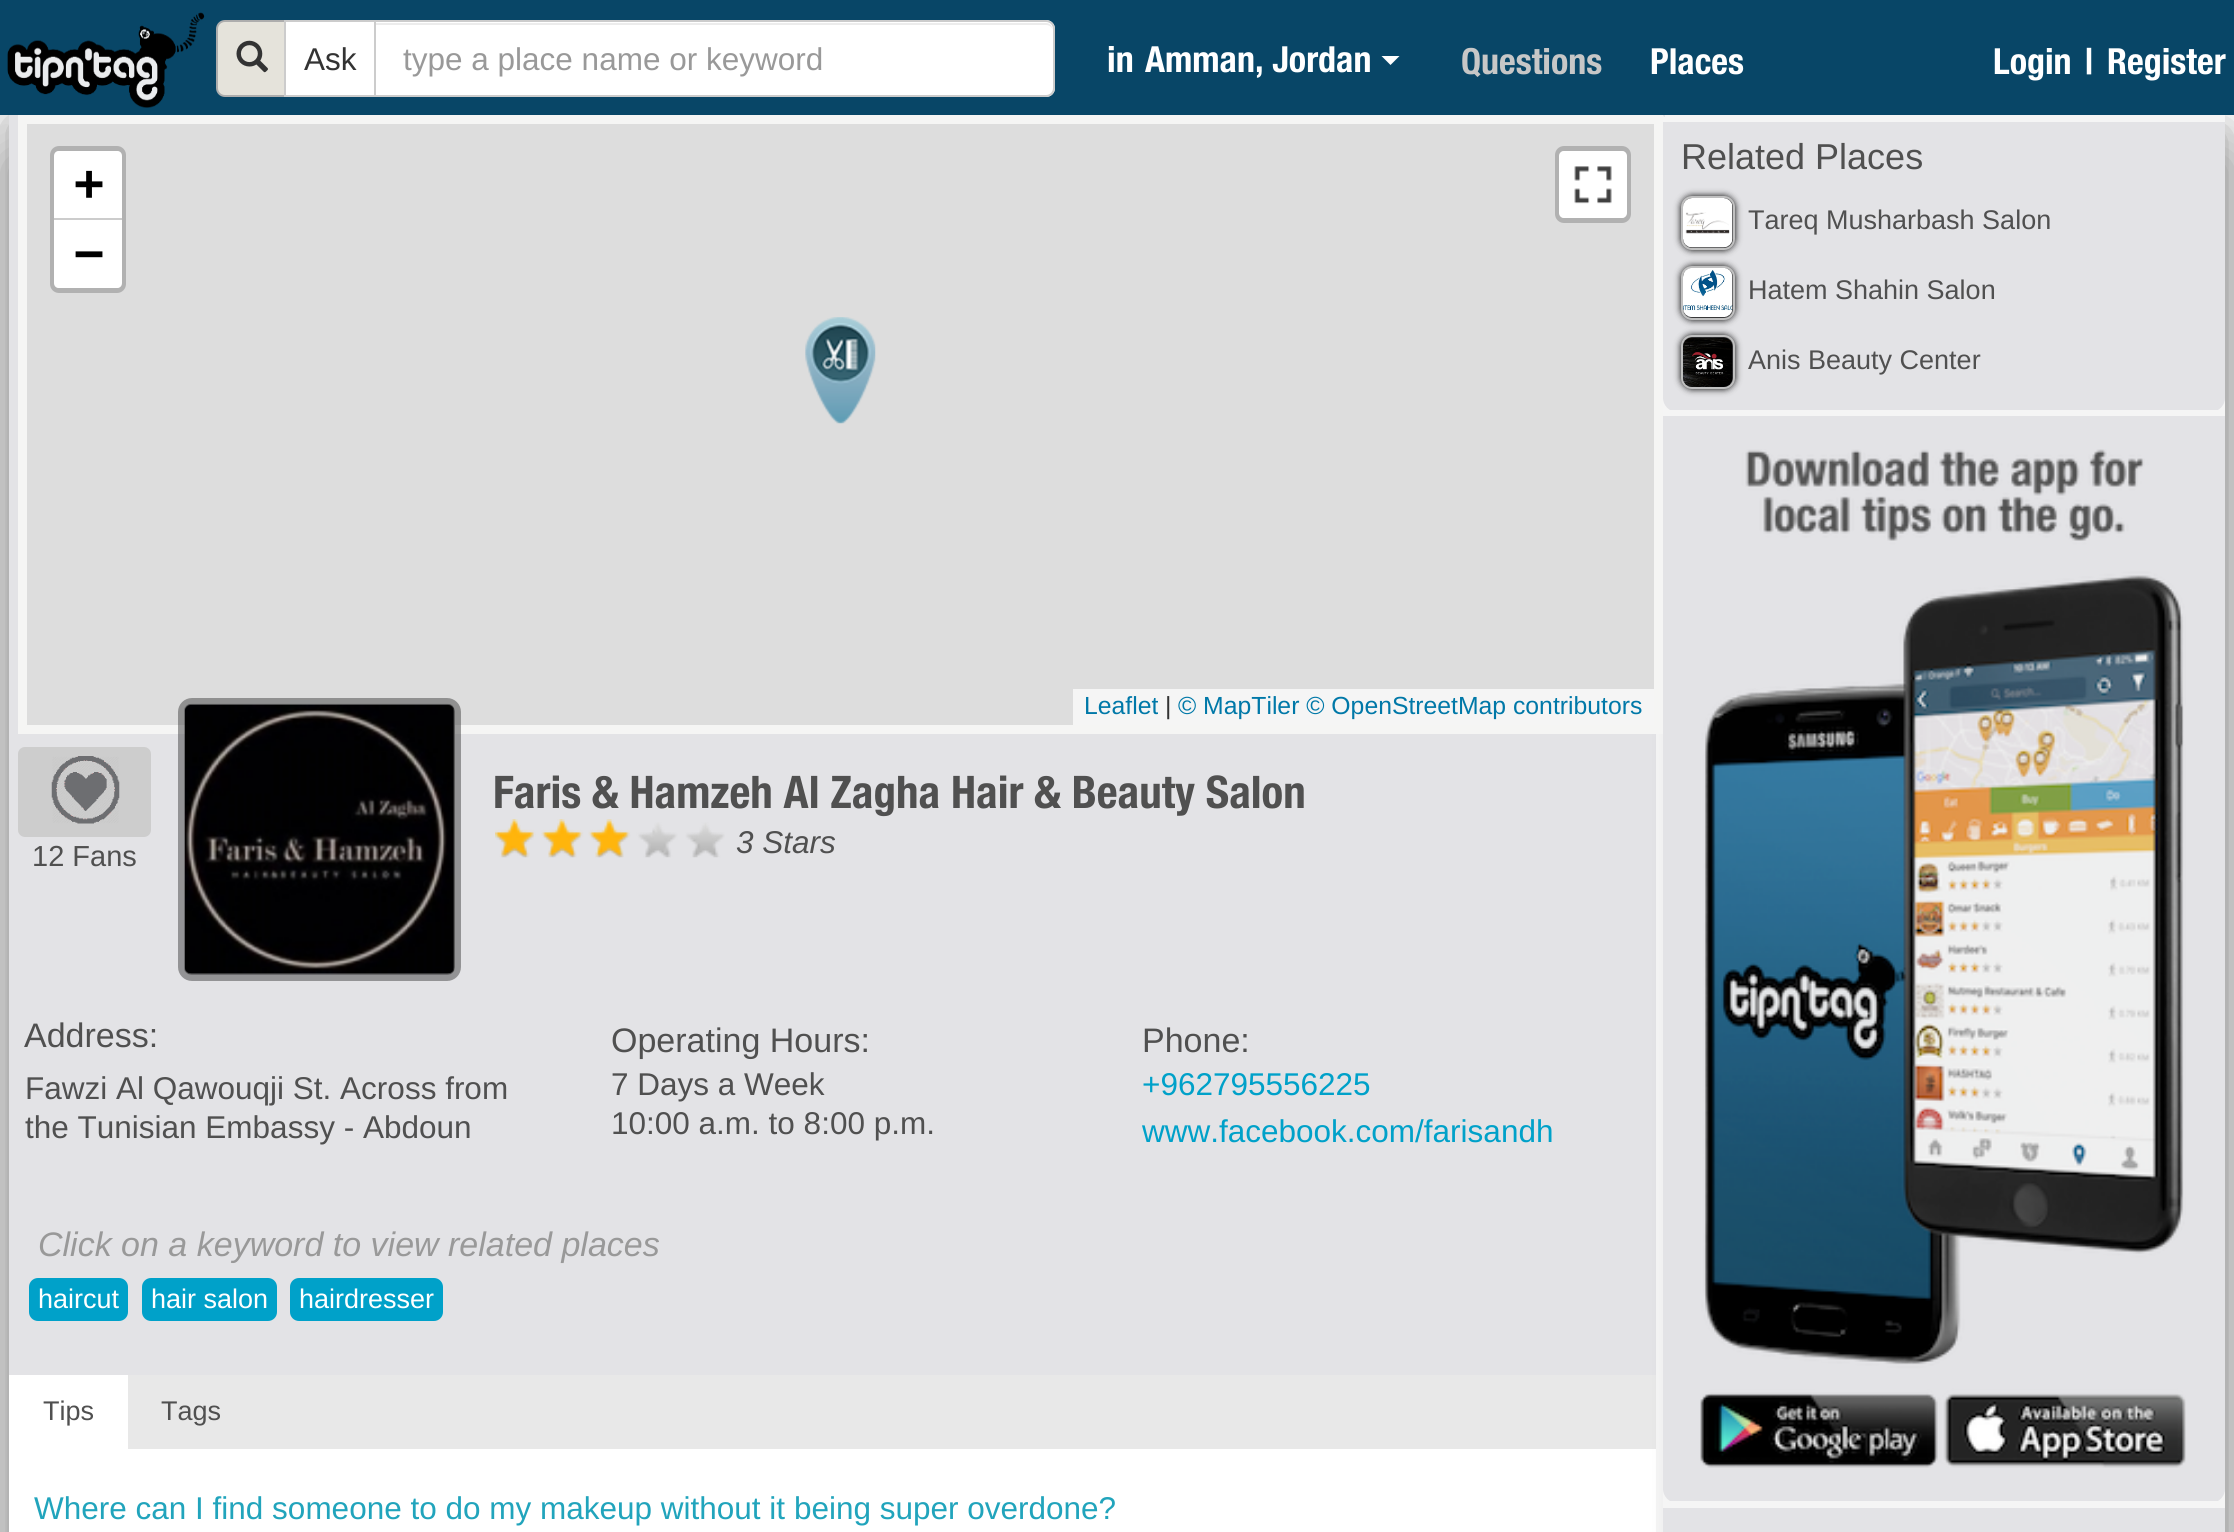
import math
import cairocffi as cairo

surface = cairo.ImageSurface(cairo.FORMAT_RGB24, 2234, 1532)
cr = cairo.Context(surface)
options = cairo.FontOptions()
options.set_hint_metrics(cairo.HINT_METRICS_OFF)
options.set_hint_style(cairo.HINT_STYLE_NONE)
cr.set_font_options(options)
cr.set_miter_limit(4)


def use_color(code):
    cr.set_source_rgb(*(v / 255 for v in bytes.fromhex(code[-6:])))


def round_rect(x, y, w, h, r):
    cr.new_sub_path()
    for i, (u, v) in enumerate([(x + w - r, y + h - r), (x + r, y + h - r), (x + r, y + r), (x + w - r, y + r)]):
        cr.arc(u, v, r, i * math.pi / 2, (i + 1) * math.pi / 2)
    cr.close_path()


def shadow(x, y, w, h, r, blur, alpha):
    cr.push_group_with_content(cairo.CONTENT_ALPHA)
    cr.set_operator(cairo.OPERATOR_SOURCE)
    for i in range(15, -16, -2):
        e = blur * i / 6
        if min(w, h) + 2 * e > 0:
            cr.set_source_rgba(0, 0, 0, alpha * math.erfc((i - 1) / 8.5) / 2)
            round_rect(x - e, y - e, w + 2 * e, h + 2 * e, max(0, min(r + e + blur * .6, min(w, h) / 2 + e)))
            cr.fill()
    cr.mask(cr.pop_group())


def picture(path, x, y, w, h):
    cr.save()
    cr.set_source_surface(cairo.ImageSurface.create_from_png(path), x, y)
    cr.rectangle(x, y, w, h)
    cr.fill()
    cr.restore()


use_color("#ffffff")
cr.paint()
cr.save()
cr.rectangle(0, 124, 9, 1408)
cr.clip()
use_color("#999999")
shadow(11, 162, 1609, 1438, 0, 22.5, 1)
cr.restore()
cr.save()
cr.rectangle(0, 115, 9, 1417)
cr.clip()
use_color("#999999")
shadow(9, 122, 1609, 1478, 0, 22.5, 1)
cr.restore()
use_color("#f5f5f5")
cr.rectangle(1656, 734, 7, 798)
cr.fill()
use_color("#e3e3e6")
cr.rectangle(9, 115, 1647, 1260)
cr.fill()
use_color("#e8e8e8")
cr.rectangle(128, 1375, 1528, 74)
cr.fill()
use_color("#999999")
shadow(1708, 162, 517, 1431, 0, 21.5, 1)
shadow(1708, 131, 517, 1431, 0, 22.5, 1)
use_color("#084667")
cr.rectangle(0, 0, 2234, 115)
cr.fill()
picture("img1.png", 7, 12, 198, 96)
use_color("#e5e3db")
cr.new_path()
cr.move_to(225, 21)
cr.line_to(287, 21)
cr.line_to(287, 96)
cr.line_to(225, 96)
cr.curve_to(220.5, 96, 217, 92.5, 217, 88)
cr.line_to(217, 29)
cr.curve_to(217, 24.5, 220.5, 21, 225, 21)
cr.close_path()
cr.fill_preserve()
use_color("#adadad")
cr.stroke()
picture("img2.png", 236, 40, 32, 33)
use_color("#ffffff")
cr.rectangle(285, 21, 90, 75)
cr.fill_preserve()
use_color("#cccccc")
cr.stroke()
cr.select_font_face("Liberation Sans")
cr.set_font_size(31.5)
use_color("#333333")
cr.move_to(304, 70)
cr.show_text("Ask")
use_color("#ffffff")
cr.new_path()
cr.move_to(374, 20)
cr.line_to(1046, 20)
cr.curve_to(1051, 20, 1055, 24, 1055, 29)
cr.line_to(1055, 88)
cr.curve_to(1055, 93, 1051, 97, 1046, 97)
cr.line_to(374, 97)
cr.close_path()
cr.fill()
use_color("#ececec")
cr.new_path()
cr.move_to(376, 25)
cr.line_to(1046, 25)
cr.curve_to(1050, 25, 1053, 28, 1053, 32)
cr.curve_to(1053, 28, 1051, 23, 1046, 23)
cr.line_to(376, 23)
cr.close_path()
cr.fill()
cr.new_path()
cr.move_to(375, 21)
cr.line_to(1046, 21)
cr.curve_to(1050.5, 21, 1054, 24.5, 1054, 29)
cr.line_to(1054, 88)
cr.curve_to(1054, 92.5, 1050.5, 96, 1046, 96)
cr.line_to(375, 96)
cr.close_path()
use_color("#cccccc")
cr.stroke()
use_color("#999999")
cr.move_to(403, 70)
cr.show_text("type a place name or keyword")
cr.select_font_face("Helvetica Neue", cairo.FONT_SLANT_NORMAL, cairo.FONT_WEIGHT_BOLD)
cr.set_font_size(36)
use_color("#ffffff")
cr.move_to(1107, 72)
cr.show_text("in")
cr.move_to(1145, 72)
cr.show_text("Amman, Jordan")
cr.new_path()
cr.move_to(1381.5, 56)
cr.line_to(1399.5, 56)
cr.line_to(1390.5, 65)
cr.close_path()
cr.fill()
use_color("#c7c7c7")
cr.move_to(1461, 74)
cr.show_text("Questions")
use_color("#ffffff")
cr.move_to(1650, 74)
cr.show_text("Places")
cr.move_to(1993, 74)
cr.show_text("Login")
cr.move_to(2085, 74)
cr.show_text("|")
cr.move_to(2107, 74)
cr.show_text("Register")
use_color("#dddddd")
cr.rectangle(22.5, 119.5, 1636, 610)
cr.fill_preserve()
use_color("#f5f5f4")
cr.set_line_width(9)
cr.stroke()
round_rect(52.5, 148.5, 71, 142, 6.5)
use_color("#b1b1b1")
cr.set_line_width(5)
cr.stroke()
use_color("#ffffff")
cr.new_path()
cr.move_to(59, 151)
cr.line_to(117, 151)
cr.curve_to(120, 151, 122, 153, 122, 156)
cr.line_to(122, 221)
cr.line_to(54, 221)
cr.line_to(54, 156)
cr.curve_to(54, 153, 56, 151, 59, 151)
cr.close_path()
cr.fill()
use_color("#cccccc")
cr.rectangle(54, 218, 68, 2)
cr.fill()
cr.select_font_face("DejaVu Sans Mono", cairo.FONT_SLANT_NORMAL, cairo.FONT_WEIGHT_BOLD)
cr.set_font_size(50)
use_color("#000000")
cr.move_to(74, 200)
cr.show_text("+")
use_color("#ffffff")
cr.new_path()
cr.move_to(54, 221)
cr.line_to(122, 221)
cr.line_to(122, 283)
cr.curve_to(122, 286, 120, 288, 117, 288)
cr.line_to(59, 288)
cr.curve_to(56, 288, 54, 286, 54, 283)
cr.close_path()
cr.fill()
use_color("#000000")
cr.move_to(74, 270)
cr.show_text("−")
round_rect(1557.5, 148.5, 71, 72, 6.5)
use_color("#b1b1b1")
cr.stroke()
use_color("#ffffff")
round_rect(1559, 151, 68, 67, 5)
cr.fill()
picture("img3.png", 1574, 166, 38, 38)
use_color("#f5f5f5")
cr.rectangle(1073, 689, 581, 36)
cr.fill()
cr.select_font_face("Liberation Sans")
cr.set_font_size(24.75)
use_color("#0078a8")
cr.move_to(1084, 714)
cr.show_text("Leaflet")
use_color("#333333")
cr.move_to(1165, 714)
cr.show_text("|")
use_color("#0078a8")
cr.move_to(1178, 714)
cr.show_text("© MapTiler © OpenStreetMap contributors")
picture("img4.png", 805, 317, 71, 107)
use_color("#cdcdcd")
round_rect(18, 747, 133, 90, 7)
cr.fill()
picture("img5.png", 51, 756, 69, 68)
cr.set_font_size(29)
use_color("#505050")
cr.move_to(32, 866)
cr.show_text("12 Fans")
use_color("#ffffff")
round_rect(185, 704, 270, 270, 7)
cr.fill()
round_rect(181.5, 701.5, 276, 276, 10.5)
cr.set_source_rgba(0.267, 0.267, 0.267, 0.5)
cr.set_line_width(7)
cr.stroke()
picture("img6.png", 184, 703, 271, 272)
cr.select_font_face("Helvetica Neue", cairo.FONT_SLANT_NORMAL, cairo.FONT_WEIGHT_BOLD)
cr.set_font_size(45)
use_color("#505050")
cr.move_to(493, 808)
cr.show_text("Faris & Hamzeh Al Zagha Hair & Beauty Salon")
picture("img7.png", 495, 822, 230, 36)
picture("img8.png", 495, 819, 135, 39)
cr.select_font_face("Liberation Sans", cairo.FONT_SLANT_ITALIC)
cr.set_font_size(31.5)
cr.move_to(736, 853)
cr.show_text("3 Stars")
cr.select_font_face("Liberation Sans")
cr.set_font_size(34)
cr.move_to(24, 1047)
cr.show_text("Address:")
cr.set_font_size(31.5)
cr.move_to(25, 1099)
cr.show_text("Fawzi Al Qawouqji St. Across from")
cr.move_to(25, 1138)
cr.show_text("the Tunisian Embassy - Abdoun")
cr.set_font_size(34)
cr.move_to(611, 1052)
cr.show_text("Operating Hours:")
cr.set_font_size(31.5)
cr.move_to(611, 1095)
cr.show_text("7 Days a Week")
cr.move_to(611, 1134)
cr.show_text("10:00 a.m. to 8:00 p.m.")
cr.set_font_size(34)
cr.move_to(1142, 1052)
cr.show_text("Phone:")
cr.set_font_size(31.5)
use_color("#00a1c9")
cr.move_to(1142, 1095)
cr.show_text("+962795556225")
cr.move_to(1142, 1142)
cr.show_text("www.facebook.com/farisandh")
cr.select_font_face("Liberation Sans", cairo.FONT_SLANT_ITALIC)
cr.set_font_size(34)
use_color("#999999")
cr.move_to(38, 1256)
cr.show_text("Click on a keyword to view related places")
use_color("#00a1c9")
round_rect(29, 1278, 99, 43, 9)
cr.fill()
cr.select_font_face("Liberation Sans")
cr.set_font_size(27)
use_color("#ffffff")
cr.move_to(38, 1308)
cr.show_text("haircut")
use_color("#00a1c9")
round_rect(142, 1278, 135, 43, 9)
cr.fill()
use_color("#ffffff")
cr.move_to(151, 1308)
cr.show_text("hair salon")
use_color("#00a1c9")
round_rect(290, 1278, 153, 43, 9)
cr.fill()
use_color("#ffffff")
cr.move_to(299, 1308)
cr.show_text("hairdresser")
use_color("#505050")
cr.move_to(43, 1420)
cr.show_text("Tips")
cr.move_to(161, 1420)
cr.show_text("Tags")
cr.set_font_size(31.5)
use_color("#21a4bc")
cr.move_to(34, 1519)
cr.show_text("Where can I find someone to do my makeup without it being super overdone?")
use_color("#f5f5f5")
cr.rectangle(1663, 115, 562, 1393)
cr.fill()
use_color("#e3e3e6")
cr.new_path()
cr.move_to(1663, 115)
cr.line_to(2225, 115)
cr.curve_to(2225, 116, 2224, 117, 2223, 117)
cr.line_to(1665, 117)
cr.curve_to(1664, 117, 1663, 116, 1663, 115)
cr.close_path()
cr.fill()
use_color("#f5f5f5")
cr.rectangle(1665, 115, 560, 2)
cr.fill()
use_color("#e3e3e6")
cr.new_path()
cr.move_to(1663, 117)
cr.line_to(2225, 117)
cr.line_to(2225, 398)
cr.curve_to(2225, 405.5, 2218.5, 412, 2211, 412)
cr.line_to(1677, 412)
cr.curve_to(1669.5, 412, 1663, 405.5, 1663, 398)
cr.close_path()
cr.fill()
use_color("#f5f5f5")
cr.rectangle(1670, 410, 549, 2)
cr.fill()
cr.rectangle(1663, 117, 562, 5)
cr.fill()
cr.set_font_size(36)
use_color("#505050")
cr.move_to(1681, 169)
cr.show_text("Related Places")
use_color("#000000")
shadow(1681, 196, 54, 54, 11, 3.5, 1)
round_rect(1682, 197, 52, 52, 10)
use_color("#c0c0c0")
cr.set_line_width(2)
cr.stroke()
picture("img9.png", 1683, 198, 50, 50)
cr.set_font_size(27)
use_color("#505050")
cr.move_to(1748, 229)
cr.show_text("Tareq Musharbash Salon")
use_color("#000000")
shadow(1681, 266, 54, 54, 11, 3.5, 1)
round_rect(1682, 267, 52, 52, 10)
use_color("#c0c0c0")
cr.stroke()
picture("img10.png", 1683, 268, 50, 49)
use_color("#505050")
cr.move_to(1748, 299)
cr.show_text("Hatem Shahin Salon")
use_color("#000000")
shadow(1681, 335, 54, 54, 11, 3.5, 1)
round_rect(1682, 336, 52, 52, 10)
use_color("#c0c0c0")
cr.stroke()
picture("img11.png", 1683, 337, 50, 50)
use_color("#505050")
cr.move_to(1748, 369)
cr.show_text("Anis Beauty Center")
use_color("#e3e3e6")
cr.new_path()
cr.move_to(1663, 416)
cr.line_to(2225, 416)
cr.line_to(2225, 1489)
cr.curve_to(2225, 1496.5, 2218.5, 1503, 2211, 1503)
cr.line_to(1677, 1503)
cr.curve_to(1669.5, 1503, 1663, 1496.5, 1663, 1489)
cr.close_path()
cr.fill()
use_color("#f5f5f5")
cr.rectangle(1670, 1501, 549, 2)
cr.fill()
picture("img12.png", 1700, 449, 486, 1019)
use_color("#e3e3e6")
cr.rectangle(1663, 1508, 562, 24)
cr.fill()
surface.write_to_png("result.png")
